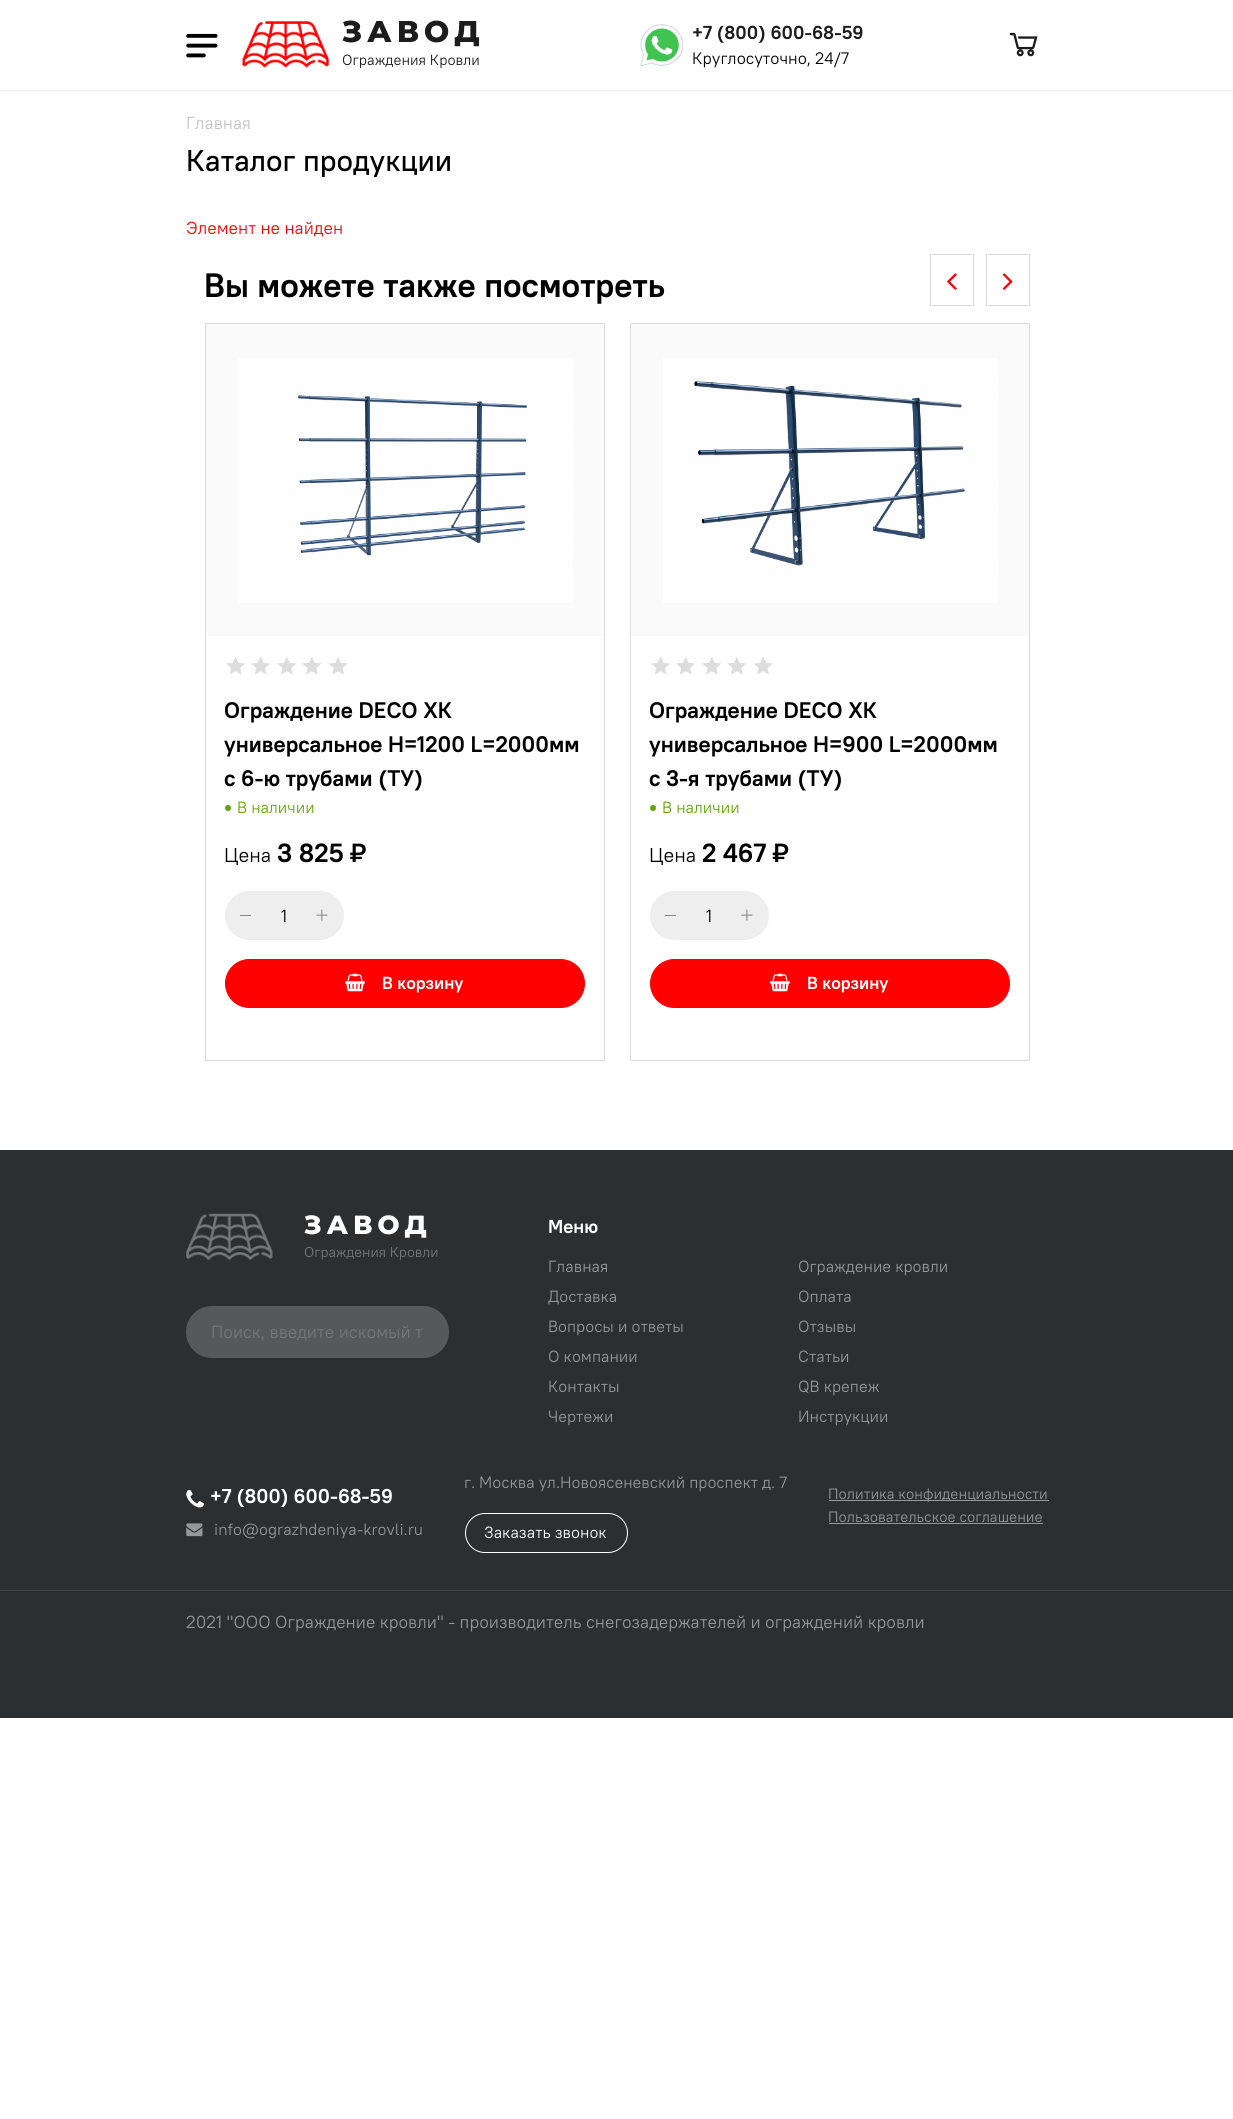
import math
import cairocffi as cairo

surface = cairo.ImageSurface(cairo.FORMAT_RGB24, 1233, 2119)
cr = cairo.Context(surface)
options = cairo.FontOptions()
options.set_hint_metrics(cairo.HINT_METRICS_OFF)
options.set_hint_style(cairo.HINT_STYLE_NONE)
cr.set_font_options(options)
cr.set_miter_limit(4)


def use_color(code):
    cr.set_source_rgb(*(v / 255 for v in bytes.fromhex(code[-6:])))


def spaced_text(x, y, s, letter, word):
    cr.move_to(x, y)
    for ch in s:
        cr.show_text(ch)
        cr.rel_move_to(letter + word * (ch == ' '), 0)


def round_rect(x, y, w, h, r):
    cr.new_sub_path()
    for i, (u, v) in enumerate([(x + w - r, y + h - r), (x + r, y + h - r), (x + r, y + r), (x + w - r, y + r)]):
        cr.arc(u, v, r, i * math.pi / 2, (i + 1) * math.pi / 2)
    cr.close_path()


def picture(path, x, y, w, h):
    cr.save()
    cr.set_source_surface(cairo.ImageSurface.create_from_png(path), x, y)
    cr.rectangle(x, y, w, h)
    cr.fill()
    cr.restore()


use_color("#ffffff")
cr.paint()
use_color("#eeeeee")
cr.rectangle(0, 90, 1233, 1)
cr.fill()
picture("img1.png", 186, 33, 32, 25)
picture("img2.png", 242, 21, 87, 47)
cr.select_font_face("Montserrat ExtraBold")
cr.set_font_size(30)
use_color("#1c1c1c")
spaced_text(342, 42, "ЗАВОД", 5, 0)
cr.select_font_face("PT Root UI")
cr.set_font_size(14.75)
cr.move_to(342, 65)
cr.show_text("Ограждения Кровли")
picture("img3.png", 640, 24, 44, 43)
cr.select_font_face("PT Root UI", cairo.FONT_SLANT_NORMAL, cairo.FONT_WEIGHT_BOLD)
cr.set_font_size(18.75)
cr.move_to(692, 39)
cr.show_text("+7 (800) 600-68-59")
cr.select_font_face("PT Root UI")
cr.set_font_size(16.6)
use_color("#000000")
cr.move_to(692, 64)
cr.show_text("Круглосуточно, 24/7")
picture("img4.png", 1009, 32, 29, 25)
cr.set_font_size(17.5)
use_color("#c5c5c5")
cr.move_to(186, 129)
cr.show_text("Главная")
cr.select_font_face("PT Root UI Medium")
cr.set_font_size(30)
use_color("#000000")
cr.move_to(186, 171)
cr.show_text("Каталог продукции")
cr.select_font_face("PT Root UI")
cr.set_font_size(17.5)
use_color("#ff0000")
cr.move_to(186, 234)
cr.show_text("Элемент не найден")
cr.select_font_face("PT Root UI", cairo.FONT_SLANT_NORMAL, cairo.FONT_WEIGHT_BOLD)
cr.set_font_size(33.75)
use_color("#000000")
cr.move_to(204, 297)
cr.show_text("Вы можете также посмотреть")
cr.rectangle(930.5, 254.5, 43, 51)
use_color("#dddddd")
cr.set_line_width(1)
cr.stroke()
picture("img5.png", 947, 273, 10, 17)
cr.rectangle(986.5, 254.5, 43, 51)
cr.stroke()
picture("img6.png", 1002, 273, 11, 17)
cr.rectangle(205.5, 323.5, 399, 737)
cr.stroke()
use_color("#fafafa")
cr.rectangle(206, 324, 398, 312)
cr.fill()
picture("img7.png", 238, 358, 335, 245)
picture("img8.png", 226, 657, 19, 18)
picture("img8.png", 251, 657, 19, 18)
picture("img9.png", 277, 657, 19, 18)
picture("img9.png", 302, 657, 19, 18)
picture("img10.png", 329, 657, 19, 18)
cr.set_font_size(22.5)
use_color("#000000")
cr.move_to(224, 718)
cr.show_text("Ограждение DECO ХК")
cr.move_to(224, 752)
cr.show_text("универсальное H=1200 L=2000мм")
cr.move_to(224, 786)
cr.show_text("с 6-ю трубами (ТУ)")
use_color("#5fa800")
cr.new_path()
cr.arc(228, 808, 3, 0, 2 * math.pi)
cr.fill()
cr.select_font_face("PT Root UI")
cr.set_font_size(16.25)
cr.move_to(237, 813)
cr.show_text("В наличии")
cr.set_font_size(20)
use_color("#000000")
cr.move_to(224, 862)
cr.show_text("Цена")
cr.select_font_face("PT Root UI", cairo.FONT_SLANT_NORMAL, cairo.FONT_WEIGHT_BOLD)
cr.set_font_size(26.25)
cr.move_to(277, 862)
cr.show_text("3 825 ₽")
use_color("#eeeeee")
round_rect(225.5, 891.5, 118, 48, 24)
cr.fill_preserve()
cr.stroke()
use_color("#858585")
cr.rectangle(240, 915, 11, 1)
cr.fill()
cr.select_font_face("PT Root UI")
cr.set_font_size(17.5)
use_color("#000000")
cr.move_to(281, 922)
cr.show_text("1")
picture("img11.png", 316, 909, 12, 12)
use_color("#ff0000")
round_rect(225.5, 959.5, 359, 48, 24)
cr.fill_preserve()
cr.stroke()
picture("img12.png", 345, 973, 20, 19)
cr.select_font_face("PT Root UI", cairo.FONT_SLANT_NORMAL, cairo.FONT_WEIGHT_BOLD)
use_color("#ffffff")
cr.move_to(382, 989)
cr.show_text("В корзину")
cr.rectangle(630.5, 323.5, 399, 737)
use_color("#dddddd")
cr.stroke()
use_color("#fafafa")
cr.rectangle(631, 324, 398, 312)
cr.fill()
picture("img13.png", 663, 358, 335, 245)
picture("img8.png", 651, 657, 19, 18)
picture("img8.png", 676, 657, 19, 18)
picture("img9.png", 702, 657, 19, 18)
picture("img9.png", 727, 657, 19, 18)
picture("img10.png", 754, 657, 19, 18)
cr.set_font_size(22.5)
use_color("#000000")
cr.move_to(649, 718)
cr.show_text("Ограждение DECO ХК")
cr.move_to(649, 752)
cr.show_text("универсальное H=900 L=2000мм")
cr.move_to(649, 786)
cr.show_text("с 3-я трубами (ТУ)")
use_color("#5fa800")
cr.new_path()
cr.arc(653, 808, 3, 0, 2 * math.pi)
cr.fill()
cr.select_font_face("PT Root UI")
cr.set_font_size(16.25)
cr.move_to(662, 813)
cr.show_text("В наличии")
cr.set_font_size(20)
use_color("#000000")
cr.move_to(649, 862)
cr.show_text("Цена")
cr.select_font_face("PT Root UI", cairo.FONT_SLANT_NORMAL, cairo.FONT_WEIGHT_BOLD)
cr.set_font_size(26.25)
cr.move_to(702, 862)
cr.show_text("2 467 ₽")
use_color("#eeeeee")
round_rect(650.5, 891.5, 118, 48, 24)
cr.fill_preserve()
cr.stroke()
use_color("#858585")
cr.rectangle(665, 915, 11, 1)
cr.fill()
cr.select_font_face("PT Root UI")
cr.set_font_size(17.5)
use_color("#000000")
cr.move_to(706, 922)
cr.show_text("1")
picture("img11.png", 741, 909, 12, 12)
use_color("#ff0000")
round_rect(650.5, 959.5, 359, 48, 24)
cr.fill_preserve()
cr.stroke()
picture("img12.png", 770, 973, 20, 19)
cr.select_font_face("PT Root UI", cairo.FONT_SLANT_NORMAL, cairo.FONT_WEIGHT_BOLD)
use_color("#ffffff")
cr.move_to(807, 989)
cr.show_text("В корзину")
use_color("#2b2f32")
cr.rectangle(0, 1150, 1233, 568)
cr.fill()
picture("img14.png", 186, 1213, 87, 47)
cr.select_font_face("Montserrat ExtraBold")
cr.set_font_size(26.25)
use_color("#ffffff")
spaced_text(304, 1234, "ЗАВОД", 5, 0)
cr.select_font_face("PT Root UI")
cr.set_font_size(14.4)
use_color("#737779")
cr.move_to(304, 1257)
cr.show_text("Ограждения Кровли")
use_color("#55595b")
round_rect(186, 1306, 263, 52, 26)
cr.fill()
cr.set_font_size(17.5)
use_color("#737779")
cr.move_to(211, 1338)
cr.show_text("Поиск, введите искомый т")
cr.select_font_face("PT Root UI", cairo.FONT_SLANT_NORMAL, cairo.FONT_WEIGHT_BOLD)
cr.set_font_size(18.75)
use_color("#ffffff")
cr.move_to(548, 1233)
cr.show_text("Меню")
cr.select_font_face("PT Root UI")
cr.set_font_size(16.25)
use_color("#959799")
cr.move_to(548, 1272)
cr.show_text("Главная")
cr.move_to(798, 1272)
cr.show_text("Ограждение кровли")
cr.move_to(548, 1302)
cr.show_text("Доставка")
cr.move_to(798, 1302)
cr.show_text("Оплата")
cr.move_to(548, 1332)
cr.show_text("Вопросы и ответы")
cr.move_to(798, 1332)
cr.show_text("Отзывы")
cr.move_to(548, 1362)
cr.show_text("О компании")
cr.move_to(798, 1362)
cr.show_text("Статьи")
cr.move_to(548, 1392)
cr.show_text("Контакты")
cr.move_to(798, 1392)
cr.show_text("QB крепеж")
cr.move_to(548, 1422)
cr.show_text("Чертежи")
cr.move_to(798, 1422)
cr.show_text("Инструкции")
picture("img15.png", 186, 1489, 18, 19)
cr.select_font_face("PT Root UI", cairo.FONT_SLANT_NORMAL, cairo.FONT_WEIGHT_BOLD)
cr.set_font_size(20)
use_color("#ffffff")
cr.move_to(210, 1503)
cr.show_text("+7 (800) 600-68-59")
picture("img16.png", 186, 1523, 17, 14)
cr.select_font_face("PT Root UI")
cr.set_font_size(16.25)
use_color("#959799")
cr.move_to(214, 1535)
cr.show_text("info@ograzhdeniya-krovli.ru")
cr.move_to(464, 1488)
cr.show_text("г. Москва ул.Новоясеневский проспект д. 7")
round_rect(465.5, 1513.5, 162, 39, 19.5)
use_color("#ffffff")
cr.stroke()
cr.move_to(484, 1538)
cr.show_text("Заказать звонок")
use_color("#959799")
cr.rectangle(829, 1500, 220, 1)
cr.fill()
cr.set_font_size(15)
cr.move_to(828, 1499)
cr.show_text("Политика конфиденциальности")
cr.move_to(828, 1522)
cr.show_text("Пользовательское соглашение")
cr.rectangle(829, 1523, 214, 1)
cr.fill()
use_color("#404447")
cr.rectangle(0, 1590, 1233, 1)
cr.fill()
cr.set_font_size(17.5)
use_color("#959799")
cr.move_to(186, 1628)
cr.show_text("2021 \"ООО Ограждение кровли\" - производитель снегозадержателей и ограждений кровли")
surface.write_to_png("result.png")
